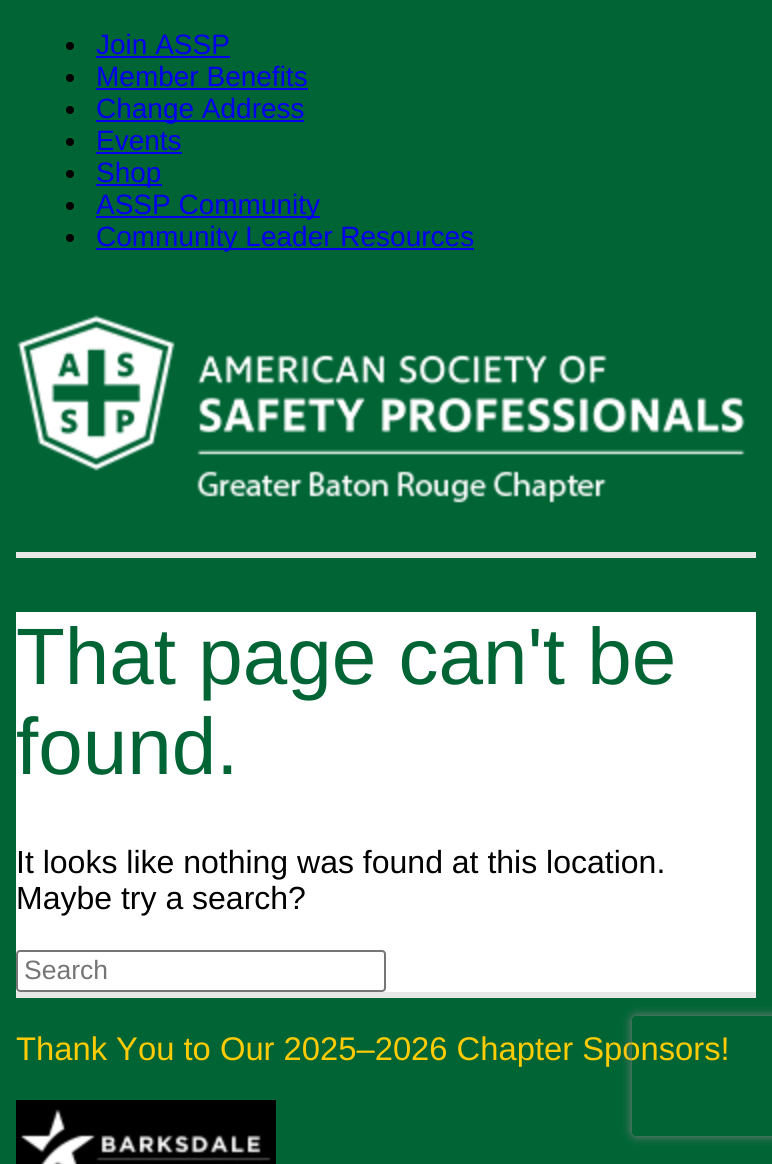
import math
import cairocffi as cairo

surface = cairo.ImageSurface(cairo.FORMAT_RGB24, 772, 1164)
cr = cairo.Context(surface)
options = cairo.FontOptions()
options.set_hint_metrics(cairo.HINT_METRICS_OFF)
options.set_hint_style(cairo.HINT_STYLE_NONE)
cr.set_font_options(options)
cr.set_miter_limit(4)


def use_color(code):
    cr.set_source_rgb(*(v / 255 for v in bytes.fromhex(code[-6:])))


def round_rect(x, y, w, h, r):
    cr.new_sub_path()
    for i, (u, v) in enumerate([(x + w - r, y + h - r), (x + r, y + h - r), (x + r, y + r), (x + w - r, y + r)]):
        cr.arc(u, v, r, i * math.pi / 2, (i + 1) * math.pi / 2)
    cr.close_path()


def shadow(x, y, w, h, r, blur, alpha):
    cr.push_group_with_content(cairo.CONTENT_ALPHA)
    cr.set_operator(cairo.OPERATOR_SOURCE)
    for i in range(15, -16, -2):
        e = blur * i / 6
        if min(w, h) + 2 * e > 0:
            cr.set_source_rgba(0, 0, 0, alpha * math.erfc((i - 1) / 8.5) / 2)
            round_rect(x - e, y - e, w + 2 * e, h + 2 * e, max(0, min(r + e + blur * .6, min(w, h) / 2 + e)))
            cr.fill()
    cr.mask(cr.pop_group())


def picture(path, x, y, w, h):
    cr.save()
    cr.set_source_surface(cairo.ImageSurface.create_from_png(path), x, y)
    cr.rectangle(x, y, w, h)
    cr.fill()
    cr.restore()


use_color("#006435")
cr.paint()
use_color("#000000")
cr.arc(70, 46, 4, 0, 2 * math.pi)
cr.fill()
cr.select_font_face("Liberation Sans")
cr.set_font_size(28)
use_color("#0000ee")
cr.move_to(96, 54)
cr.show_text("Join ASSP")
cr.rectangle(96, 56, 134, 2)
cr.fill()
use_color("#000000")
cr.arc(70, 78, 4, 0, 2 * math.pi)
cr.fill()
use_color("#0000ee")
cr.move_to(96, 86)
cr.show_text("Member Benefits")
cr.rectangle(96, 88, 212, 2)
cr.fill()
use_color("#000000")
cr.arc(70, 110, 4, 0, 2 * math.pi)
cr.fill()
use_color("#0000ee")
cr.rectangle(96, 120, 208, 2)
cr.fill()
cr.move_to(96, 118)
cr.show_text("Change Address")
use_color("#000000")
cr.new_path()
cr.arc(70, 142, 4, 0, 2 * math.pi)
cr.fill()
use_color("#0000ee")
cr.move_to(96, 150)
cr.show_text("Events")
cr.rectangle(96, 152, 86, 2)
cr.fill()
use_color("#000000")
cr.arc(70, 174, 4, 0, 2 * math.pi)
cr.fill()
use_color("#0000ee")
cr.rectangle(96, 184, 66, 2)
cr.fill()
cr.move_to(96, 182)
cr.show_text("Shop")
use_color("#000000")
cr.new_path()
cr.arc(70, 206, 4, 0, 2 * math.pi)
cr.fill()
use_color("#0000ee")
cr.rectangle(96, 216, 224, 2)
cr.fill()
cr.move_to(96, 214)
cr.show_text("ASSP Community")
use_color("#000000")
cr.new_path()
cr.arc(70, 238, 4, 0, 2 * math.pi)
cr.fill()
use_color("#0000ee")
cr.rectangle(96, 248, 378, 2)
cr.fill()
cr.move_to(96, 246)
cr.show_text("Community Leader Resources")
use_color("#e8e8e8")
cr.rectangle(16, 552, 740, 6)
cr.fill()
picture("img1.png", 17, 315, 728, 188)
use_color("#ffffff")
cr.rectangle(16, 612, 740, 380)
cr.fill()
cr.set_font_size(80)
use_color("#006435")
cr.move_to(16, 684)
cr.show_text("That page can't be")
cr.move_to(16, 774)
cr.show_text("found.")
cr.set_font_size(32)
use_color("#000000")
cr.move_to(16, 873)
cr.show_text("It looks like nothing was found at this location.")
cr.move_to(16, 909)
cr.show_text("Maybe try a search?")
round_rect(17, 951, 368, 40, 3)
use_color("#767676")
cr.stroke()
cr.set_font_size(26.5)
use_color("#757575")
cr.move_to(24, 979)
cr.show_text("Search")
use_color("#e8e8e8")
cr.rectangle(16, 992, 740, 6)
cr.fill()
cr.set_font_size(32.75)
use_color("#ffcb05")
cr.move_to(16, 1060)
cr.show_text("Thank You to Our 2025–2026 Chapter Sponsors!")
picture("img2.png", 16, 1100, 260, 64)
cr.save()
cr.set_fill_rule(cairo.FILL_RULE_EVEN_ODD)
cr.new_path()
cr.move_to(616, 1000)
cr.line_to(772, 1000)
cr.line_to(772, 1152)
cr.line_to(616, 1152)
cr.close_path()
cr.move_to(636, 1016)
cr.line_to(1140, 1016)
cr.curve_to(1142, 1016, 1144, 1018, 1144, 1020)
cr.line_to(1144, 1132)
cr.curve_to(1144, 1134, 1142, 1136, 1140, 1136)
cr.line_to(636, 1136)
cr.curve_to(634, 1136, 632, 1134, 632, 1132)
cr.line_to(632, 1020)
cr.curve_to(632, 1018, 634, 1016, 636, 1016)
cr.close_path()
cr.clip()
use_color("#808080")
shadow(632, 1016, 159, 120, 4, 5, 1)
cr.restore()
surface.write_to_png("result.png")
